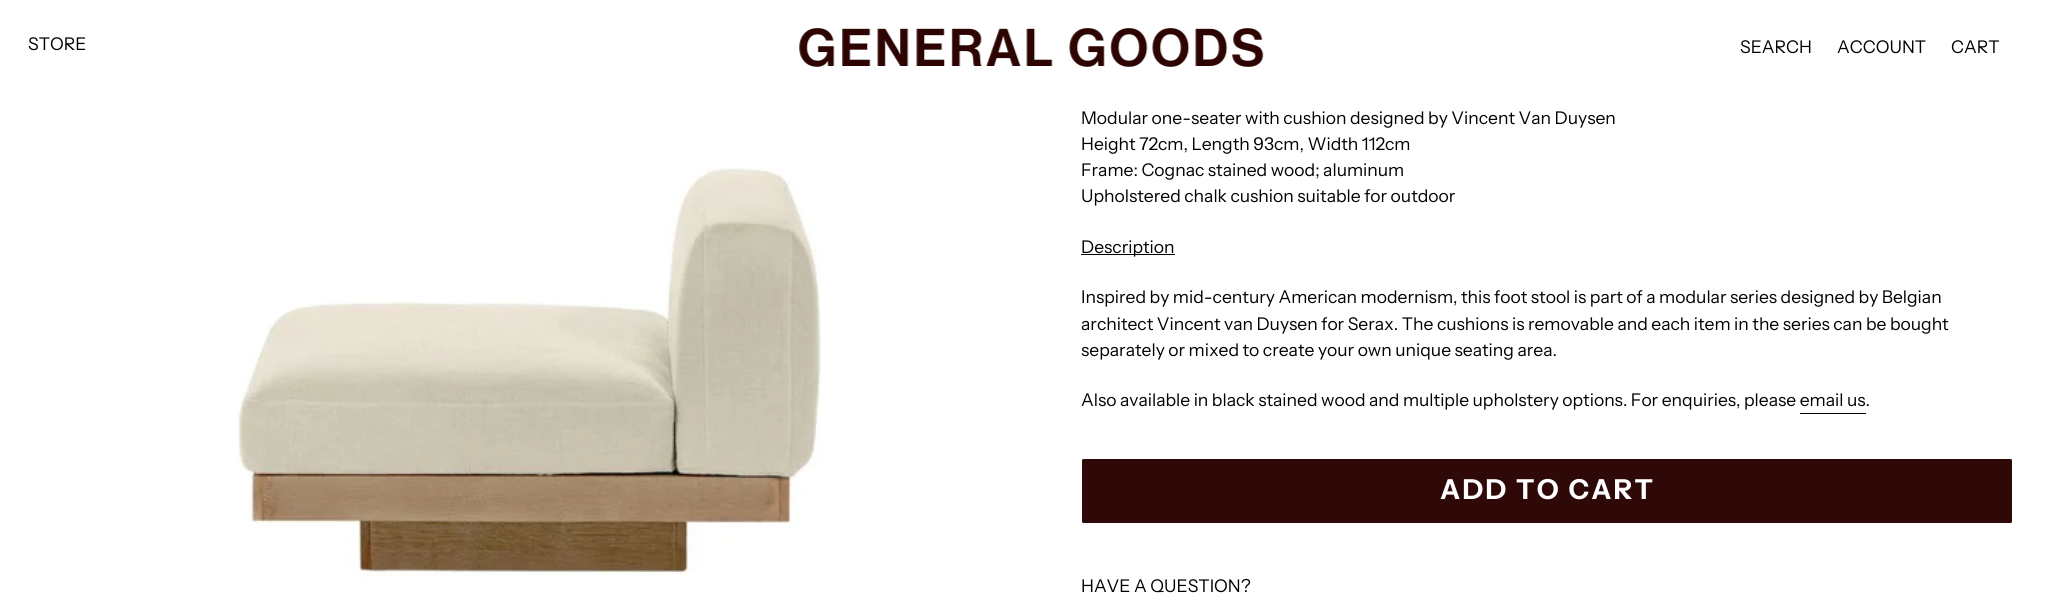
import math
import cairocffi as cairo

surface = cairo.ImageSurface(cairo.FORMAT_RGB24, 2062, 606)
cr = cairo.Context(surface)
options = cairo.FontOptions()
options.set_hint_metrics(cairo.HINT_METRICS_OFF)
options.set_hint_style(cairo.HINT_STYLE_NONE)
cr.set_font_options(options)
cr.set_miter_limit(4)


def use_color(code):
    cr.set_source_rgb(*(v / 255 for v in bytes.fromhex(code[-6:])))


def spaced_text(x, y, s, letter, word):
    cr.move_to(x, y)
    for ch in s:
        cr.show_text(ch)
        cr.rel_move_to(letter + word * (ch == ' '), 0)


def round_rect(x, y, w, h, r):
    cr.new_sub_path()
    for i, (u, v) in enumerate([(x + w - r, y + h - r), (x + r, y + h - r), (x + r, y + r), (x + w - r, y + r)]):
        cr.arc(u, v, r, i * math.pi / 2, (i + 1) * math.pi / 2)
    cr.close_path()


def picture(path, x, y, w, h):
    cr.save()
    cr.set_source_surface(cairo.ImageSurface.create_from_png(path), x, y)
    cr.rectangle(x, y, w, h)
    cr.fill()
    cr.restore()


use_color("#ffffff")
cr.paint()
cr.select_font_face("Instrument Sans")
cr.set_font_size(17.5)
use_color("#000000")
cr.move_to(28, 50)
cr.show_text("STORE")
picture("img1.png", 799, 28, 465, 39)
cr.move_to(1740, 53)
cr.show_text("SEARCH")
cr.move_to(1837, 53)
cr.show_text("ACCOUNT")
cr.move_to(1951, 53)
cr.show_text("CART")
picture("img2.png", 237, 168, 585, 410)
cr.move_to(1081, 124)
cr.show_text("Modular one-seater with cushion designed by Vincent Van Duysen")
cr.move_to(1081, 150)
cr.show_text("Height 72cm, Length 93cm, Width 112cm")
cr.move_to(1081, 176)
cr.show_text("Frame: Cognac stained wood; aluminum")
cr.move_to(1081, 202)
cr.show_text("Upholstered chalk cushion suitable for outdoor")
cr.rectangle(1081, 254, 94, 1)
cr.fill()
cr.move_to(1081, 253)
cr.show_text("Description")
cr.move_to(1081, 303)
cr.show_text("Inspired by mid-century American modernism, this foot stool is part of a modular series designed by Belgian")
cr.move_to(1081, 330)
cr.show_text("architect Vincent van Duysen for Serax. The cushions is removable and each item in the series can be bought")
cr.move_to(1081, 356)
cr.show_text("separately or mixed to create your own unique seating area.")
cr.move_to(1081, 406)
cr.show_text("Also available in black stained wood and multiple upholstery options. For enquiries, please email us.")
cr.rectangle(1800, 413, 66, 1)
cr.fill()
use_color("#2f0808")
round_rect(1081.5, 458.5, 931, 65, 2)
cr.fill_preserve()
use_color("#ffffff")
cr.set_line_width(1)
cr.stroke()
cr.select_font_face("Instrument Sans", cairo.FONT_SLANT_NORMAL, cairo.FONT_WEIGHT_BOLD)
cr.set_font_size(27.5)
spaced_text(1440, 499, "ADD TO CART", 2.25, 0)
cr.select_font_face("Instrument Sans")
cr.set_font_size(17.5)
use_color("#000000")
cr.move_to(1081, 592)
cr.show_text("HAVE A QUESTION?")
surface.write_to_png("result.png")
